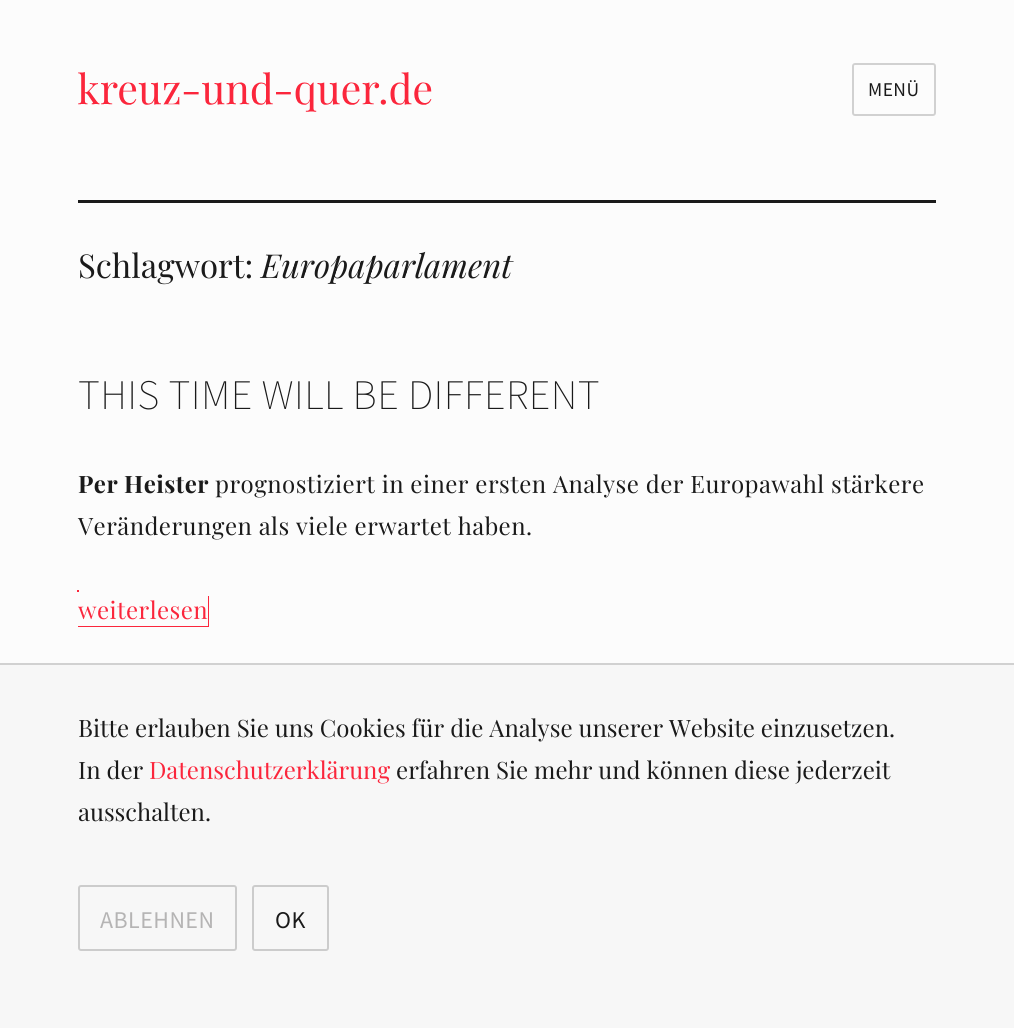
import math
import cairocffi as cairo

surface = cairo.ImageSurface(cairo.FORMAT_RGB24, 1014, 1028)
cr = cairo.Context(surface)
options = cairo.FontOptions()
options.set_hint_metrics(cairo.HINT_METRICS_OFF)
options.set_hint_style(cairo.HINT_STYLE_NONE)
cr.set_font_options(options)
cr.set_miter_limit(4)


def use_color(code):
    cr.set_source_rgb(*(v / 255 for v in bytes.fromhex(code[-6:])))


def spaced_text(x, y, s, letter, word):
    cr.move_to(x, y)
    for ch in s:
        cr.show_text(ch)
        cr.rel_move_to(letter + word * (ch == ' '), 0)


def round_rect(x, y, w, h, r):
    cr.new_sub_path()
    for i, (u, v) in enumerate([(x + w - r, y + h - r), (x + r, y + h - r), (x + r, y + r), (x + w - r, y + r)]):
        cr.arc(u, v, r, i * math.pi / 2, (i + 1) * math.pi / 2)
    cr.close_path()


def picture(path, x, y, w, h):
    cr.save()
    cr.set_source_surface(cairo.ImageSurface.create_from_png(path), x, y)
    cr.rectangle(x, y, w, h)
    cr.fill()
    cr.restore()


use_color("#fcfcfc")
cr.paint()
picture("img1.png", 78, 72, 354, 40)
round_rect(853, 64, 82, 51, 2)
use_color("#d1d1d1")
cr.stroke()
cr.select_font_face("Source Sans Pro")
cr.set_font_size(19.5)
use_color("#1a1a1a")
spaced_text(868, 96, "MENÜ", 0.45, 0)
cr.rectangle(78, 200, 858, 3)
cr.fill()
cr.select_font_face("Playfair Display")
cr.set_font_size(33)
cr.move_to(78, 278)
cr.show_text("Schlagwort:")
cr.select_font_face("Playfair Display", cairo.FONT_SLANT_ITALIC)
cr.move_to(261, 278)
cr.show_text("Europaparlament")
cr.select_font_face("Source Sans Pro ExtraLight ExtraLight")
cr.set_font_size(42)
spaced_text(78, 409, "THIS TIME WILL BE DIFFERENT", 0.45, 0)
cr.select_font_face("Playfair Display", cairo.FONT_SLANT_NORMAL, cairo.FONT_WEIGHT_BOLD)
cr.set_font_size(24)
spaced_text(78, 493, "Per Heister", 0.45, 0)
cr.select_font_face("Playfair Display")
spaced_text(215, 493, "prognostiziert in einer ersten Analyse der Europawahl stärkere", 0.45, 0)
spaced_text(78, 535, "Veränderungen als viele erwartet haben.", 0.45, 0)
use_color("#fb263c")
cr.new_path()
cr.move_to(78, 626)
cr.line_to(78, 627)
cr.line_to(209, 627)
cr.line_to(209, 596)
cr.line_to(208, 596)
cr.line_to(208, 626)
cr.close_path()
cr.fill()
spaced_text(78, 619, "weiterlesen", 0.45, 0)
cr.rectangle(77, 590, 2, 2)
cr.fill()
use_color("#f7f7f7")
cr.rectangle(0, 665, 1014, 363)
cr.fill()
use_color("#d1d1d1")
cr.rectangle(0, 663, 1014, 2)
cr.fill()
use_color("#1a1a1a")
cr.move_to(78, 737)
cr.show_text("Bitte erlauben Sie uns Cookies für die Analyse unserer Website einzusetzen.")
cr.move_to(78, 779)
cr.show_text("In der")
use_color("#fb263c")
cr.move_to(149, 779)
cr.show_text("Datenschutzerklärung")
use_color("#1a1a1a")
cr.move_to(396, 779)
cr.show_text("erfahren Sie mehr und können diese jederzeit")
cr.move_to(78, 821)
cr.show_text("ausschalten.")
round_rect(79, 886, 157, 64, 2)
use_color("#cccccc")
cr.stroke()
cr.select_font_face("Source Sans Pro")
use_color("#b5b4b4")
spaced_text(100, 928, "ABLEHNEN", 0.45, 0)
round_rect(253, 886, 75, 64, 2)
use_color("#cccccc")
cr.stroke()
use_color("#1a1a1a")
spaced_text(275, 928, "OK", 0.45, 0)
surface.write_to_png("result.png")
